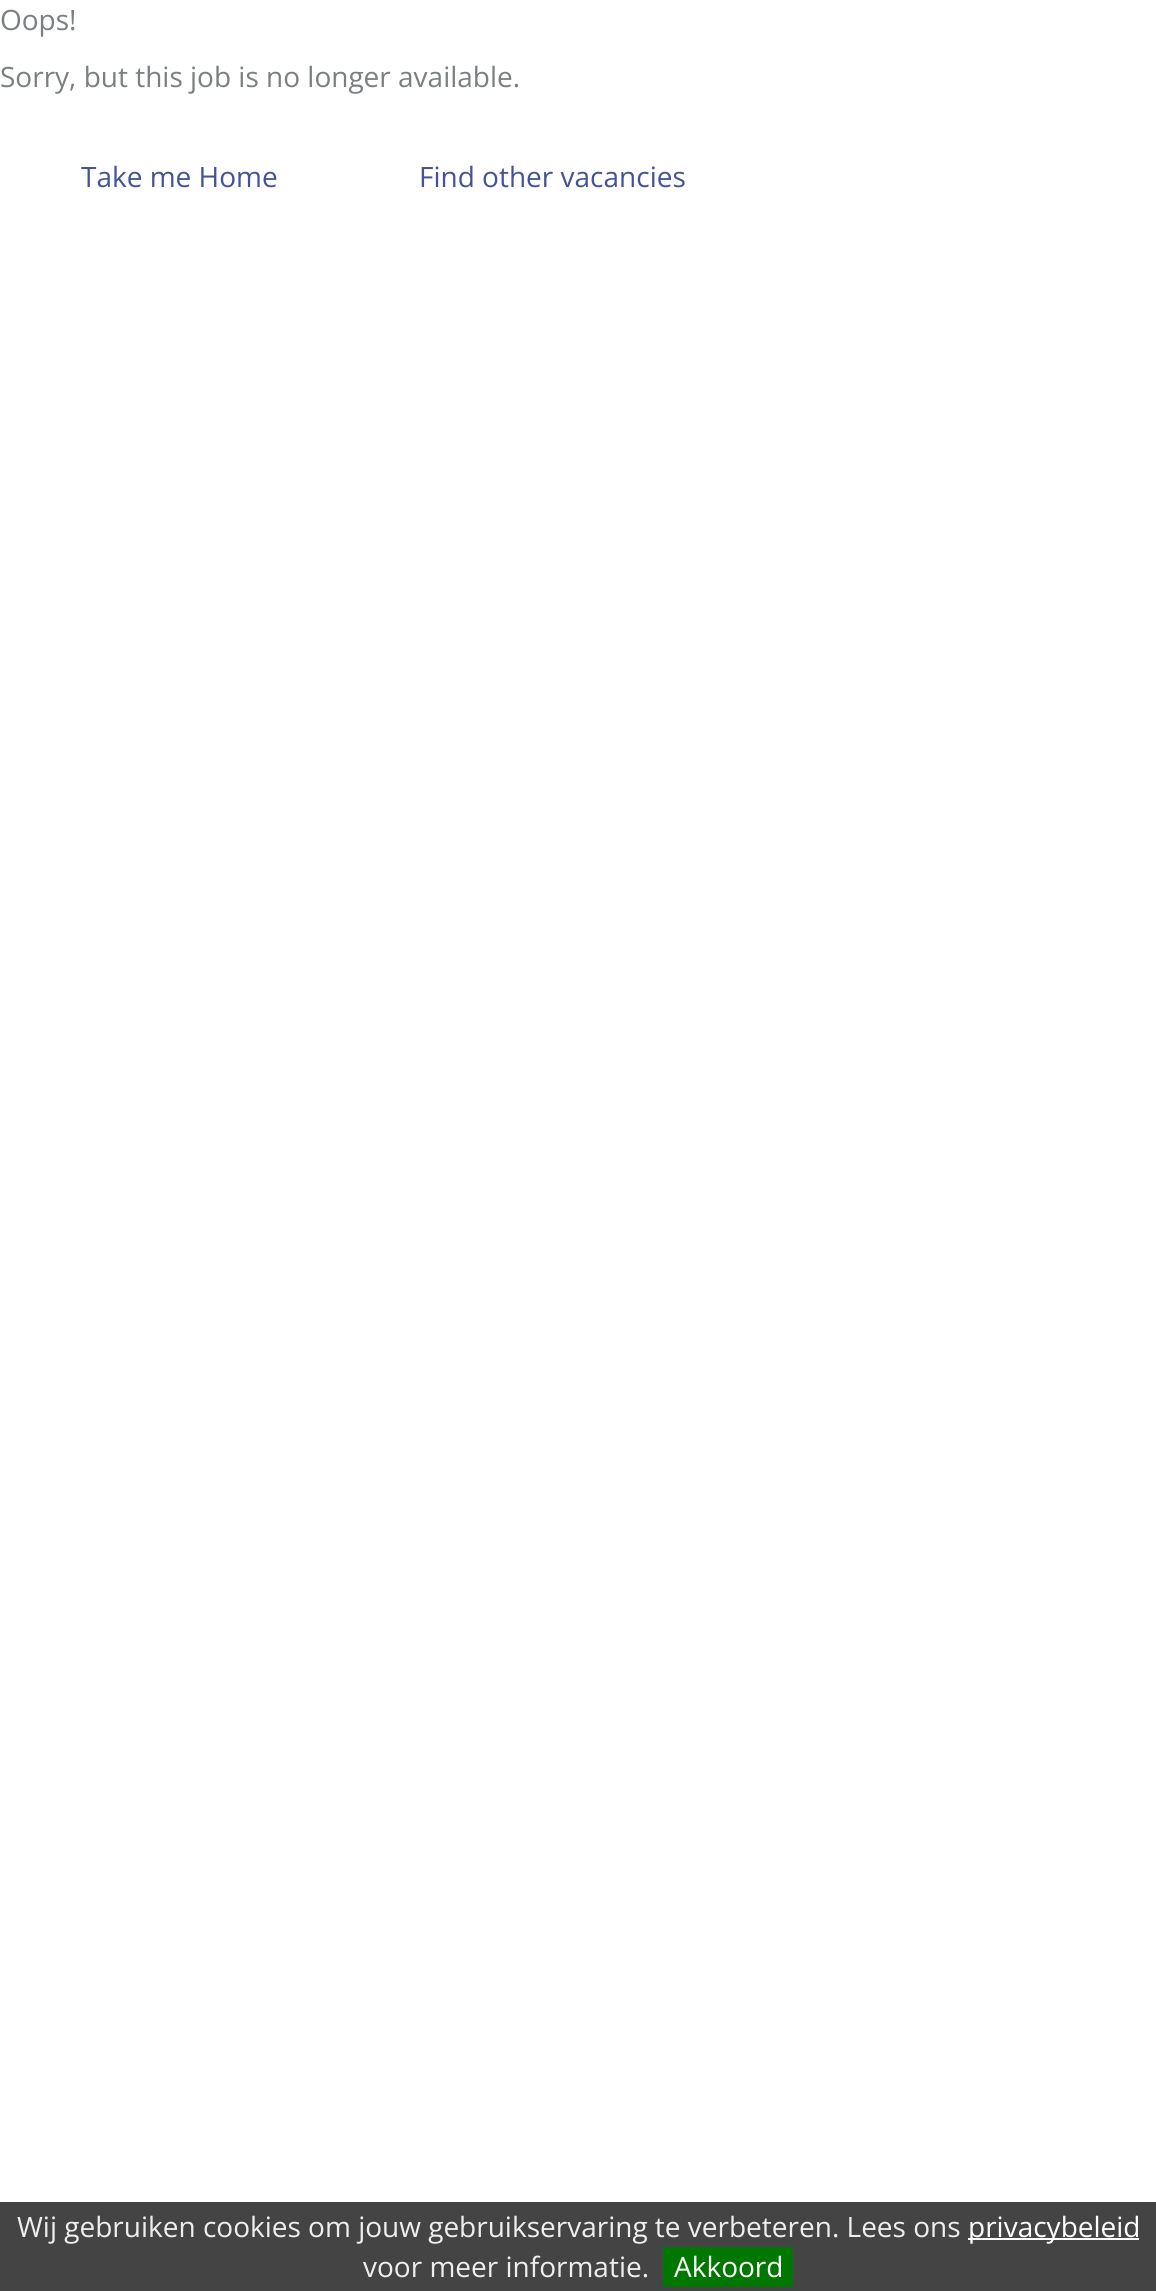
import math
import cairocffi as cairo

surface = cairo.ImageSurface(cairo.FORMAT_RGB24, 1156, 2291)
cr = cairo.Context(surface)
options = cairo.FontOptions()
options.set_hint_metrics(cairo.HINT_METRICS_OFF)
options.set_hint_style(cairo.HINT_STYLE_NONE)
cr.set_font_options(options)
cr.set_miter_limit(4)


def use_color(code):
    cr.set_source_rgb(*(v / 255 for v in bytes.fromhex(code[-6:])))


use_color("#ffffff")
cr.paint()
cr.select_font_face("Open Sans")
cr.set_font_size(28)
use_color("#7a7f81")
cr.move_to(0, 30)
cr.show_text("Oops!")
cr.move_to(0, 87)
cr.show_text("Sorry, but this job is no longer available.")
use_color("#445299")
cr.move_to(81, 187)
cr.show_text("Take me Home")
cr.move_to(419, 187)
cr.show_text("Find other vacancies")
use_color("#444444")
cr.rectangle(0, 2202, 1156, 89)
cr.fill()
use_color("#eeeeee")
cr.move_to(17, 2237)
cr.show_text("Wij gebruiken cookies om jouw gebruikservaring te verbeteren. Lees ons")
use_color("#ffffff")
cr.rectangle(968, 2238, 171, 2)
cr.fill()
cr.move_to(968, 2237)
cr.show_text("privacybeleid")
use_color("#eeeeee")
cr.move_to(363, 2277)
cr.show_text("voor meer informatie.")
use_color("#007700")
cr.rectangle(663, 2247, 130, 40)
cr.fill()
use_color("#ffffff")
cr.move_to(674, 2277)
cr.show_text("Akkoord")
surface.write_to_png("result.png")
